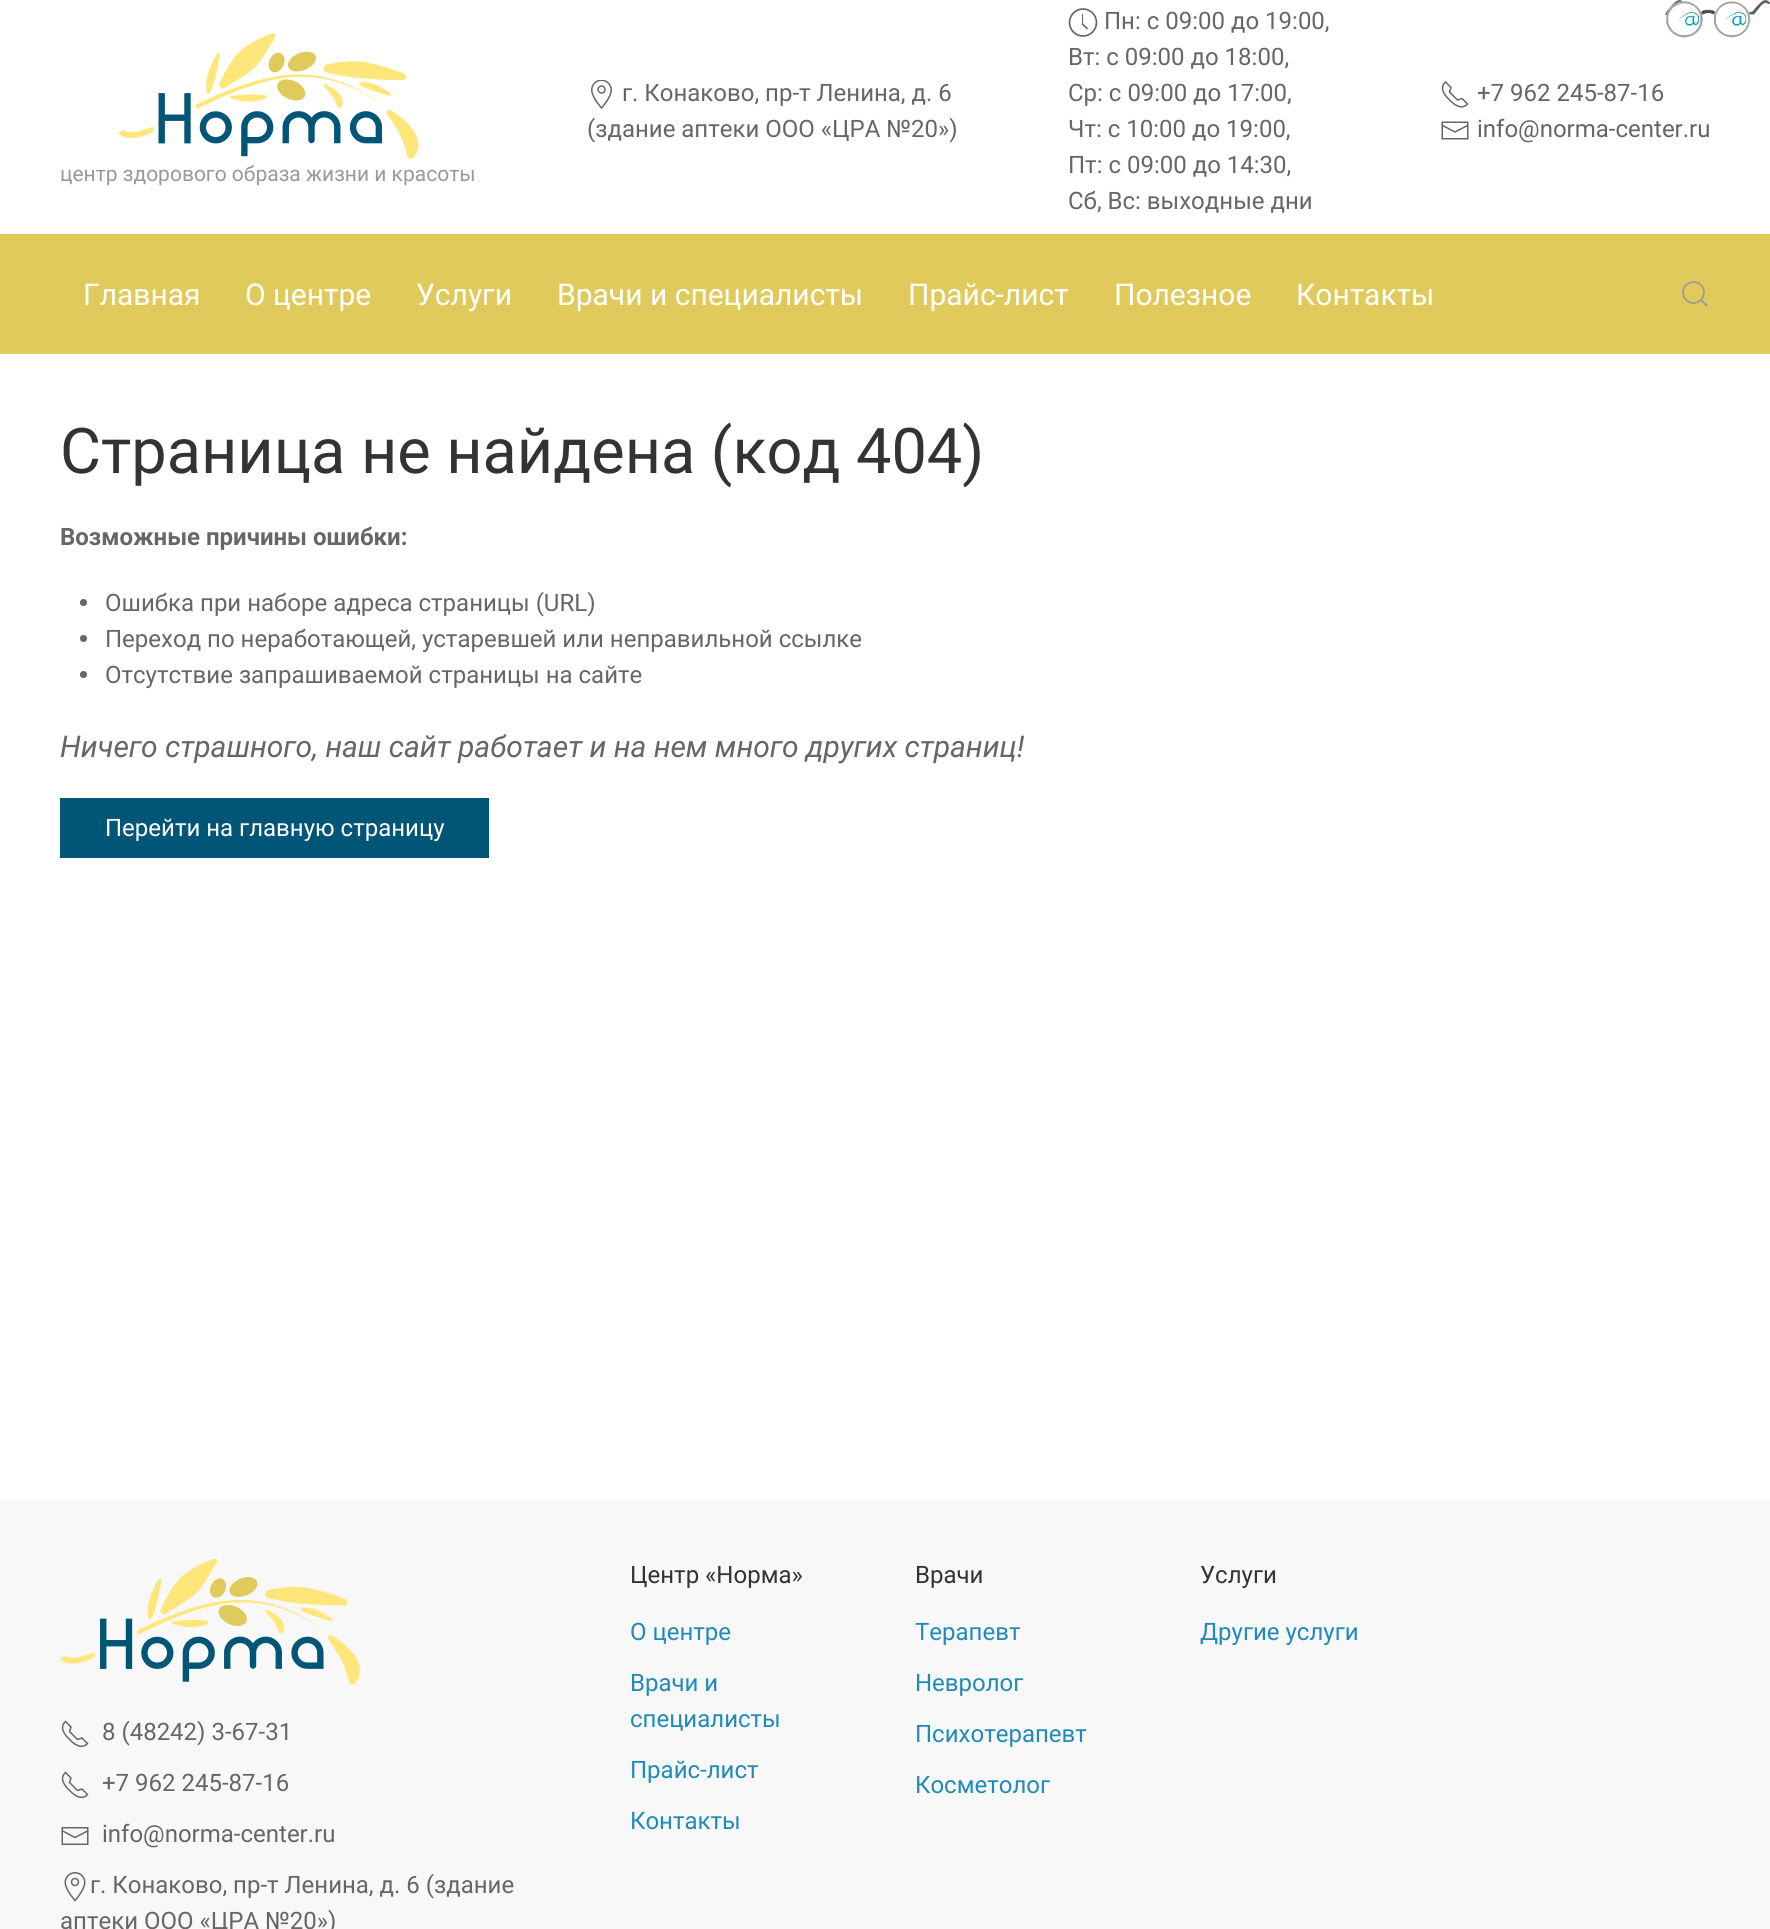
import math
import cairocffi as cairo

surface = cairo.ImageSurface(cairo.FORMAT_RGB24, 1770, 1929)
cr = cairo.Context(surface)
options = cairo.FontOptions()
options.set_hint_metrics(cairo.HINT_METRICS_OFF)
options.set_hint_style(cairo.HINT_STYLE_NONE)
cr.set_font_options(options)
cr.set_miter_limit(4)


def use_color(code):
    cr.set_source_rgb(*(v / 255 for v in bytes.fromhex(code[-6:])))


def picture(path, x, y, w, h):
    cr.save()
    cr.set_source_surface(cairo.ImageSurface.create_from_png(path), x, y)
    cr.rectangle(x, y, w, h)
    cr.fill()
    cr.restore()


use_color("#ffffff")
cr.paint()
picture("img1.png", 591, 80, 21, 29)
cr.select_font_face("Roboto")
cr.set_font_size(24)
use_color("#666666")
cr.move_to(622, 101)
cr.show_text("г. Конаково, пр-т Ленина, д. 6")
cr.move_to(587, 137)
cr.show_text("(здание аптеки ООО «ЦРА №20»)")
cr.new_path()
cr.arc(1083, 22.5, 13.5, 0, 2 * math.pi)
cr.set_line_width(1.7)
cr.stroke()
cr.rectangle(1082, 14, 1, 10)
cr.fill()
cr.new_path()
cr.move_to(1087.5, 29)
cr.line_to(1082, 23.5)
cr.stroke()
cr.move_to(1104, 29)
cr.show_text("Пн: с 09:00 до 19:00,")
cr.move_to(1068, 65)
cr.show_text("Вт: с 09:00 до 18:00,")
cr.move_to(1068, 101)
cr.show_text("Ср: с 09:00 до 17:00,")
cr.move_to(1068, 137)
cr.show_text("Чт: с 10:00 до 19:00,")
cr.move_to(1068, 173)
cr.show_text("Пт: с 09:00 до 14:30,")
cr.move_to(1068, 209)
cr.show_text("Сб, Вс: выходные дни")
cr.new_path()
cr.move_to(1449.5, 100)
cr.curve_to(1454, 104.5, 1461.5, 110.5, 1467.5, 104)
cr.line_to(1462, 98.5)
cr.line_to(1457.5, 100)
cr.line_to(1449.5, 92)
cr.line_to(1451, 87.5)
cr.line_to(1445.5, 82)
cr.curve_to(1439, 88, 1444.5, 95, 1449.5, 100)
cr.set_line_width(1.5)
cr.stroke()
cr.move_to(1477, 101)
cr.show_text("+7 962 245-87-16")
picture("img2.png", 1441, 121, 28, 19)
cr.move_to(1477, 137)
cr.show_text("info@norma-center.ru")
picture("img3.png", 119, 33, 300, 126)
cr.set_font_size(21)
use_color("#999999")
cr.move_to(60, 181)
cr.show_text("центр здорового образа жизни и красоты")
picture("img4.png", 1665, 0, 105, 38)
use_color("#dfca5b")
cr.rectangle(0, 234, 1770, 120)
cr.fill()
cr.set_font_size(30)
use_color("#ffffff")
cr.move_to(83, 305)
cr.show_text("Главная")
cr.move_to(245, 305)
cr.show_text("О центре")
cr.move_to(416, 305)
cr.show_text("Услуги")
cr.move_to(557, 305)
cr.show_text("Врачи и специалисты")
cr.move_to(908, 305)
cr.show_text("Прайс-лист")
cr.move_to(1114, 305)
cr.show_text("Полезное")
cr.move_to(1296, 305)
cr.show_text("Контакты")
cr.new_path()
cr.arc(1693.5, 292.5, 10.5, 0, 2 * math.pi)
use_color("#999999")
cr.set_line_width(1.7)
cr.stroke()
cr.new_path()
cr.move_to(1701, 300)
cr.line_to(1707, 306)
cr.close_path()
cr.stroke()
cr.set_font_size(63)
use_color("#333333")
cr.move_to(60, 473)
cr.show_text("Страница не найдена (код 404)")
cr.select_font_face("Roboto", cairo.FONT_SLANT_NORMAL, cairo.FONT_WEIGHT_BOLD)
cr.set_font_size(24)
use_color("#666666")
cr.move_to(60, 545)
cr.show_text("Возможные причины ошибки:")
cr.new_path()
cr.arc(83.5, 602.5, 3.5, 0, 2 * math.pi)
cr.fill()
cr.select_font_face("Roboto")
cr.move_to(105, 611)
cr.show_text("Ошибка при наборе адреса страницы (URL)")
cr.new_path()
cr.arc(83.5, 638.5, 3.5, 0, 2 * math.pi)
cr.fill()
cr.move_to(105, 647)
cr.show_text("Переход по неработающей, устаревшей или неправильной ссылке")
cr.new_path()
cr.arc(83.5, 674.5, 3.5, 0, 2 * math.pi)
cr.fill()
cr.move_to(105, 683)
cr.show_text("Отсутствие запрашиваемой страницы на сайте")
cr.select_font_face("Roboto", cairo.FONT_SLANT_ITALIC)
cr.set_font_size(30)
cr.move_to(60, 757)
cr.show_text("Ничего страшного, наш сайт работает и на нем много других страниц!")
use_color("#015678")
cr.rectangle(60, 798, 429, 60)
cr.fill()
cr.select_font_face("Roboto")
cr.set_font_size(24)
use_color("#ffffff")
cr.move_to(105, 836)
cr.show_text("Перейти на главную страницу")
use_color("#f8f8f8")
cr.rectangle(0, 1499, 1770, 430)
cr.fill()
use_color("#333333")
cr.move_to(630, 1583)
cr.show_text("Центр «Норма»")
use_color("#208ab8")
cr.move_to(630, 1640)
cr.show_text("О центре")
cr.move_to(630, 1691)
cr.show_text("Врачи и")
cr.move_to(630, 1727)
cr.show_text("специалисты")
cr.move_to(630, 1778)
cr.show_text("Прайс-лист")
cr.move_to(630, 1829)
cr.show_text("Контакты")
use_color("#333333")
cr.move_to(915, 1583)
cr.show_text("Врачи")
use_color("#208ab8")
cr.move_to(915, 1640)
cr.show_text("Терапевт")
cr.move_to(915, 1691)
cr.show_text("Невролог")
cr.move_to(915, 1742)
cr.show_text("Психотерапевт")
cr.move_to(915, 1793)
cr.show_text("Косметолог")
use_color("#333333")
cr.move_to(1200, 1583)
cr.show_text("Услуги")
use_color("#208ab8")
cr.move_to(1200, 1640)
cr.show_text("Другие услуги")
picture("img5.png", 60, 1559, 300, 126)
cr.new_path()
cr.move_to(69.5, 1739.5)
cr.curve_to(74, 1744, 81.5, 1750, 87.5, 1743.5)
cr.line_to(82, 1738)
cr.line_to(77.5, 1739.5)
cr.line_to(69.5, 1731.5)
cr.line_to(71, 1727)
cr.line_to(65.5, 1721.5)
cr.curve_to(59, 1727.5, 64.5, 1734.5, 69.5, 1739.5)
use_color("#666666")
cr.set_line_width(1.5)
cr.stroke()
cr.move_to(102, 1740)
cr.show_text("8 (48242) 3-67-31")
cr.new_path()
cr.move_to(69.5, 1790.5)
cr.curve_to(74, 1795, 81.5, 1801, 87.5, 1794.5)
cr.line_to(82, 1789)
cr.line_to(77.5, 1790.5)
cr.line_to(69.5, 1782.5)
cr.line_to(71, 1778)
cr.line_to(65.5, 1772.5)
cr.curve_to(59, 1778.5, 64.5, 1785.5, 69.5, 1790.5)
cr.stroke()
cr.move_to(102, 1791)
cr.show_text("+7 962 245-87-16")
picture("img6.png", 61, 1827, 28, 18)
cr.move_to(102, 1842)
cr.show_text("info@norma-center.ru")
picture("img7.png", 64, 1872, 22, 30)
cr.move_to(90, 1893)
cr.show_text("г. Конаково, пр-т Ленина, д. 6 (здание")
cr.move_to(60, 1929)
cr.show_text("аптеки ООО «ЦРА №20»)")
surface.write_to_png("result.png")
